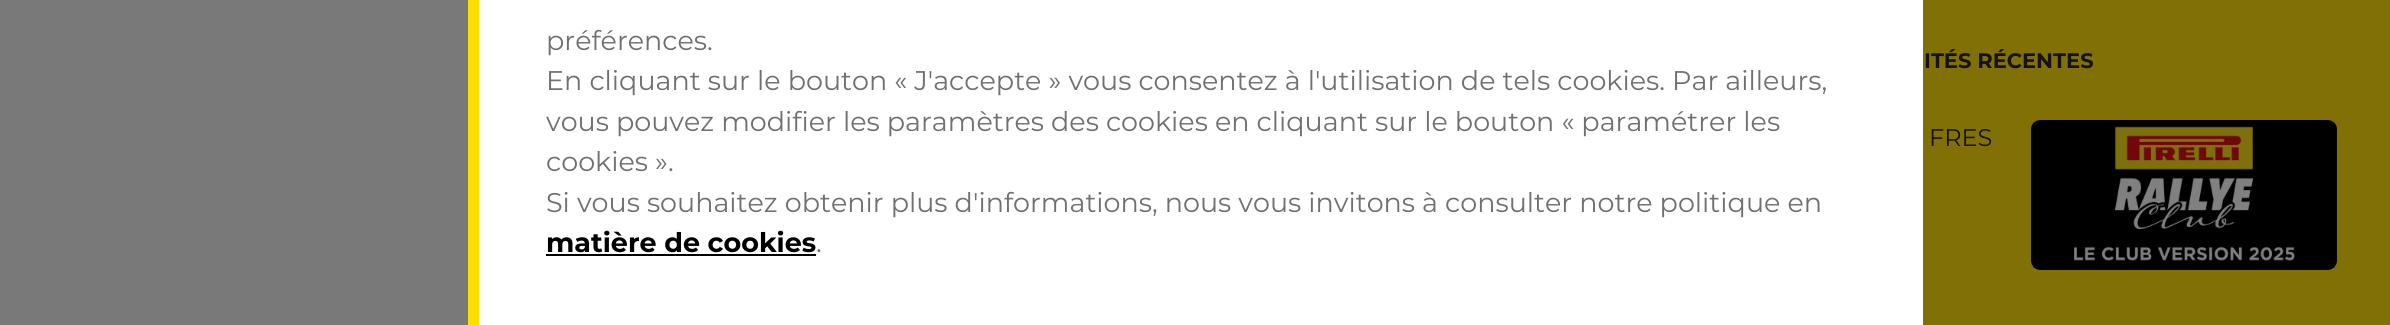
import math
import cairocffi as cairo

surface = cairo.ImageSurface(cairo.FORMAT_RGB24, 2390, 325)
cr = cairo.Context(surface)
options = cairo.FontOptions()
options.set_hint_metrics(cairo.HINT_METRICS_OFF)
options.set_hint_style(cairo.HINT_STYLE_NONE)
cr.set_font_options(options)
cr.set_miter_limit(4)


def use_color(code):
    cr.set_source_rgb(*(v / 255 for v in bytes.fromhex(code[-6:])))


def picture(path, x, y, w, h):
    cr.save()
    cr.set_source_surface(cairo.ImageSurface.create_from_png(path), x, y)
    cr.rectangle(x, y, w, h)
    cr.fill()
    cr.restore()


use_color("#797979")
cr.paint()
use_color("#ffffff")
cr.rectangle(479, 0, 1444, 325)
cr.fill()
use_color("#ffdd00")
cr.rectangle(468, 0, 11, 325)
cr.fill()
cr.select_font_face("Montserrat")
cr.set_font_size(27)
use_color("#707070")
cr.move_to(546, 50)
cr.show_text("préférences.")
cr.move_to(546, 90)
cr.show_text("En cliquant sur le bouton « J'accepte » vous consentez à l'utilisation de tels cookies. Par ailleurs,")
cr.move_to(546, 131)
cr.show_text("vous pouvez modifier les paramètres des cookies en cliquant sur le bouton « paramétrer les")
cr.move_to(546, 171)
cr.show_text("cookies ».")
cr.move_to(546, 212)
cr.show_text("Si vous souhaitez obtenir plus d'informations, nous vous invitons à consulter notre politique en")
cr.select_font_face("Montserrat", cairo.FONT_SLANT_NORMAL, cairo.FONT_WEIGHT_BOLD)
use_color("#000000")
cr.move_to(546, 252)
cr.show_text("matière de cookies")
cr.rectangle(546, 254, 270, 2)
cr.fill()
cr.select_font_face("Montserrat")
use_color("#707070")
cr.move_to(816, 252)
cr.show_text(".")
use_color("#807006")
cr.rectangle(1923, 0, 467, 325)
cr.fill()
cr.select_font_face("Montserrat", cairo.FONT_SLANT_NORMAL, cairo.FONT_WEIGHT_BOLD)
cr.set_font_size(21)
use_color("#131315")
cr.move_to(1924, 68)
cr.show_text("ITÉS RÉCENTES")
cr.select_font_face("Montserrat")
cr.set_font_size(24)
cr.move_to(1929, 146)
cr.show_text("FRES")
picture("img1.png", 2031, 120, 306, 150)
surface.write_to_png("result.png")
